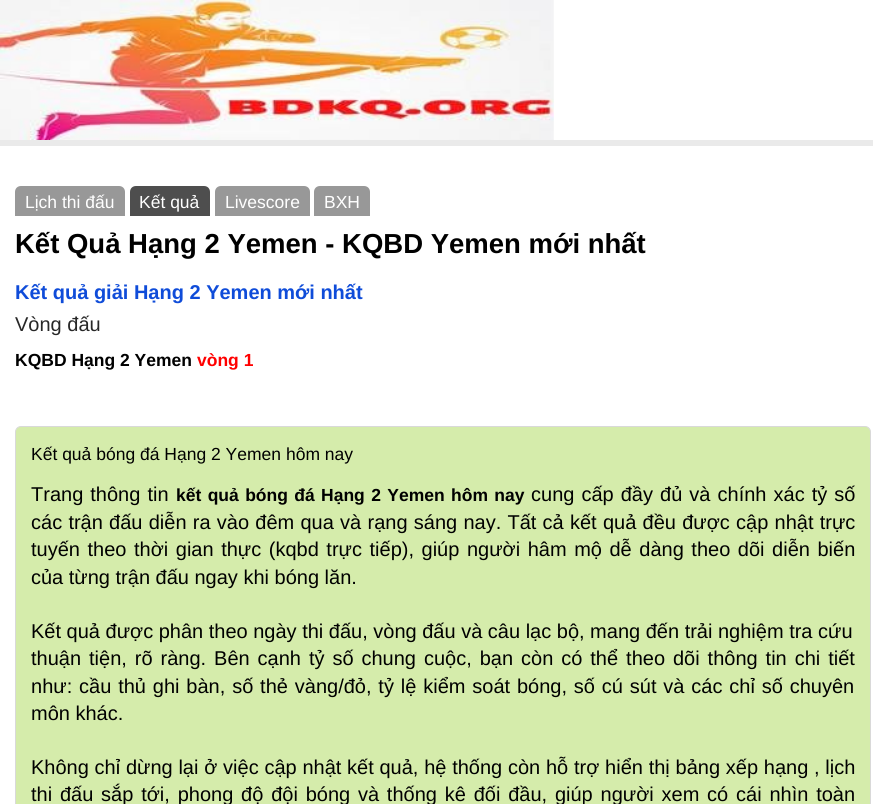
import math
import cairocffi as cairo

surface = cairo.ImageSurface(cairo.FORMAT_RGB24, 873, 804)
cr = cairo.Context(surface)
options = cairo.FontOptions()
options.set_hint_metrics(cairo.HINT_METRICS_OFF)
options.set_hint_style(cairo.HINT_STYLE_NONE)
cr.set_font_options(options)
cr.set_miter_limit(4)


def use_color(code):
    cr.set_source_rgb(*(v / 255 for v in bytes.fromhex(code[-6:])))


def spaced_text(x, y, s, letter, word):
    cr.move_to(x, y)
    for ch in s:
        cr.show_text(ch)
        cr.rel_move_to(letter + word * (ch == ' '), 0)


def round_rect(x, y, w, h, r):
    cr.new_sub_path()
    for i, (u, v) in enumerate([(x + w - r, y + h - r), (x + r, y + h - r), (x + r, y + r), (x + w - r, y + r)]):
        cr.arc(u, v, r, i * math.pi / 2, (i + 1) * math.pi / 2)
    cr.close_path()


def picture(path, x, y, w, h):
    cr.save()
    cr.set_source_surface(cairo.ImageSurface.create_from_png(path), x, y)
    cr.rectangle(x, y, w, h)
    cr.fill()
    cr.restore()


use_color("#eaeaea")
cr.paint()
use_color("#ffffff")
cr.rectangle(553, 0, 320, 140)
cr.fill()
picture("img1.png", 0, 0, 554, 140)
cr.rectangle(0, 146, 873, 658)
cr.fill()
use_color("#989898")
cr.new_path()
cr.move_to(21, 186)
cr.line_to(119, 186)
cr.curve_to(122.5, 186, 125, 188.5, 125, 192)
cr.line_to(125, 216)
cr.line_to(15, 216)
cr.line_to(15, 192)
cr.curve_to(15, 188.5, 17.5, 186, 21, 186)
cr.close_path()
cr.fill()
cr.select_font_face("Liberation Sans")
cr.set_font_size(17.5)
use_color("#ffffff")
cr.move_to(25, 208)
cr.show_text("Lịch thi đấu")
use_color("#4e4e4e")
cr.new_path()
cr.move_to(136, 186)
cr.line_to(204, 186)
cr.curve_to(207.5, 186, 210, 188.5, 210, 192)
cr.line_to(210, 216)
cr.line_to(130, 216)
cr.line_to(130, 192)
cr.curve_to(130, 188.5, 132.5, 186, 136, 186)
cr.close_path()
cr.fill()
use_color("#ffffff")
cr.move_to(139, 208)
cr.show_text("Kết quả")
use_color("#989898")
cr.new_path()
cr.move_to(221, 186)
cr.line_to(304, 186)
cr.curve_to(307.5, 186, 310, 188.5, 310, 192)
cr.line_to(310, 216)
cr.line_to(215, 216)
cr.line_to(215, 192)
cr.curve_to(215, 188.5, 217.5, 186, 221, 186)
cr.close_path()
cr.fill()
use_color("#ffffff")
cr.move_to(225, 208)
cr.show_text("Livescore")
use_color("#989898")
cr.new_path()
cr.move_to(320, 186)
cr.line_to(364, 186)
cr.curve_to(367.5, 186, 370, 188.5, 370, 192)
cr.line_to(370, 216)
cr.line_to(314, 216)
cr.line_to(314, 192)
cr.curve_to(314, 188.5, 316.5, 186, 320, 186)
cr.close_path()
cr.fill()
use_color("#ffffff")
cr.move_to(324, 208)
cr.show_text("BXH")
cr.select_font_face("Liberation Sans", cairo.FONT_SLANT_NORMAL, cairo.FONT_WEIGHT_BOLD)
cr.set_font_size(27.5)
use_color("#000000")
cr.move_to(15, 253)
cr.show_text("Kết Quả Hạng 2 Yemen - KQBD Yemen mới nhất")
cr.set_font_size(20)
use_color("#0f4cd9")
cr.move_to(15, 299)
cr.show_text("Kết quả giải Hạng 2 Yemen mới nhất")
cr.select_font_face("Liberation Sans")
use_color("#272727")
cr.move_to(15, 331)
cr.show_text("Vòng đấu")
cr.select_font_face("Liberation Sans", cairo.FONT_SLANT_NORMAL, cairo.FONT_WEIGHT_BOLD)
cr.set_font_size(17.5)
use_color("#000000")
cr.move_to(15, 366)
cr.show_text("KQBD Hạng 2 Yemen")
use_color("#ff0000")
cr.move_to(197, 366)
cr.show_text("vòng 1")
use_color("#d5ecab")
round_rect(15.5, 426.5, 855, 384, 5.5)
cr.fill_preserve()
use_color("#d9d9d9")
cr.set_line_width(1)
cr.stroke()
cr.select_font_face("Liberation Sans")
use_color("#000000")
cr.move_to(31, 460)
cr.show_text("Kết quả bóng đá Hạng 2 Yemen hôm nay")
cr.set_font_size(20)
spaced_text(31, 501, "Trang thông tin", 0, 1.5)
cr.select_font_face("Liberation Sans", cairo.FONT_SLANT_NORMAL, cairo.FONT_WEIGHT_BOLD)
cr.set_font_size(17.5)
spaced_text(176, 501, "kết quả bóng đá Hạng 2 Yemen hôm nay", 0, 1.5)
cr.select_font_face("Liberation Sans")
cr.set_font_size(20)
spaced_text(531, 501, "cung cấp đầy đủ và chính xác tỷ số", 0, 1.5)
spaced_text(31, 529, "các trận đấu diễn ra vào đêm qua và rạng sáng nay. Tất cả kết quả đều được cập nhật trực", 0, 0.7)
spaced_text(31, 556, "tuyến theo thời gian thực (kqbd trực tiếp), giúp người hâm mộ dễ dàng theo dõi diễn biến", 0, 2)
cr.move_to(31, 584)
cr.show_text("của từng trận đấu ngay khi bóng lăn.")
cr.move_to(31, 638)
cr.show_text("Kết quả được phân theo ngày thi đấu, vòng đấu và câu lạc bộ, mang đến trải nghiệm tra cứu")
spaced_text(31, 665, "thuận tiện, rõ ràng. Bên cạnh tỷ số chung cuộc, bạn còn có thể theo dõi thông tin chi tiết", 0, 2.4)
spaced_text(31, 693, "như: cầu thủ ghi bàn, số thẻ vàng/đỏ, tỷ lệ kiểm soát bóng, số cú sút và các chỉ số chuyên", 0, 1.3)
cr.move_to(31, 720)
cr.show_text("môn khác.")
spaced_text(31, 774, "Không chỉ dừng lại ở việc cập nhật kết quả, hệ thống còn hỗ trợ hiển thị bảng xếp hạng , lịch", 0, 0.2)
spaced_text(31, 801, "thi đấu sắp tới, phong độ đội bóng và thống kê đối đầu, giúp người xem có cái nhìn toàn", 0, 2.25)
surface.write_to_png("result.png")
